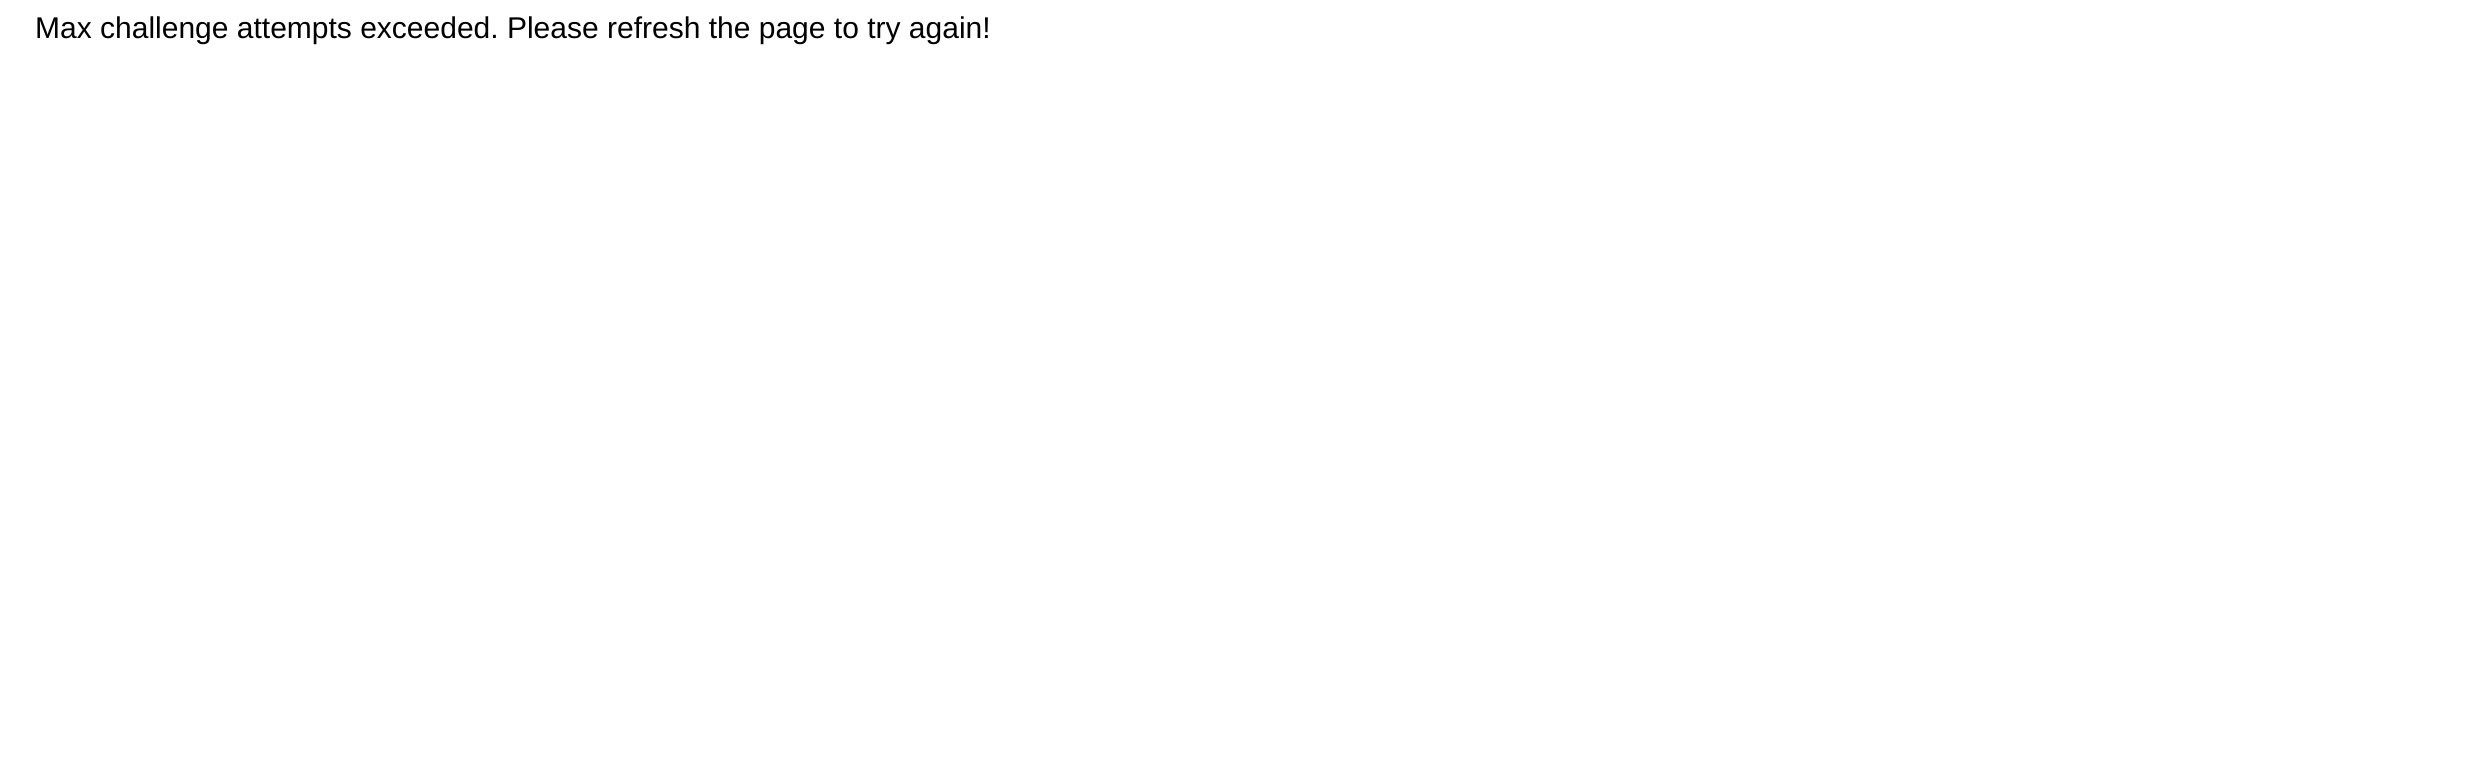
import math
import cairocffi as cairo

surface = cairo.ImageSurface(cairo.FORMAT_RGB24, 2466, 757)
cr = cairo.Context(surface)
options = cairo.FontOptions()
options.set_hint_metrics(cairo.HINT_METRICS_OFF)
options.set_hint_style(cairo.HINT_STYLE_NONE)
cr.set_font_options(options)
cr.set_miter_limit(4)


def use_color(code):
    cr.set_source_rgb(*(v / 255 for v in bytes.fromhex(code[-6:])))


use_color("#ffffff")
cr.paint()
cr.select_font_face("Liberation Sans")
cr.set_font_size(30)
use_color("#000000")
cr.move_to(35, 38)
cr.show_text("Max challenge attempts exceeded. Please refresh the page to try again!")
surface.write_to_png("result.png")
